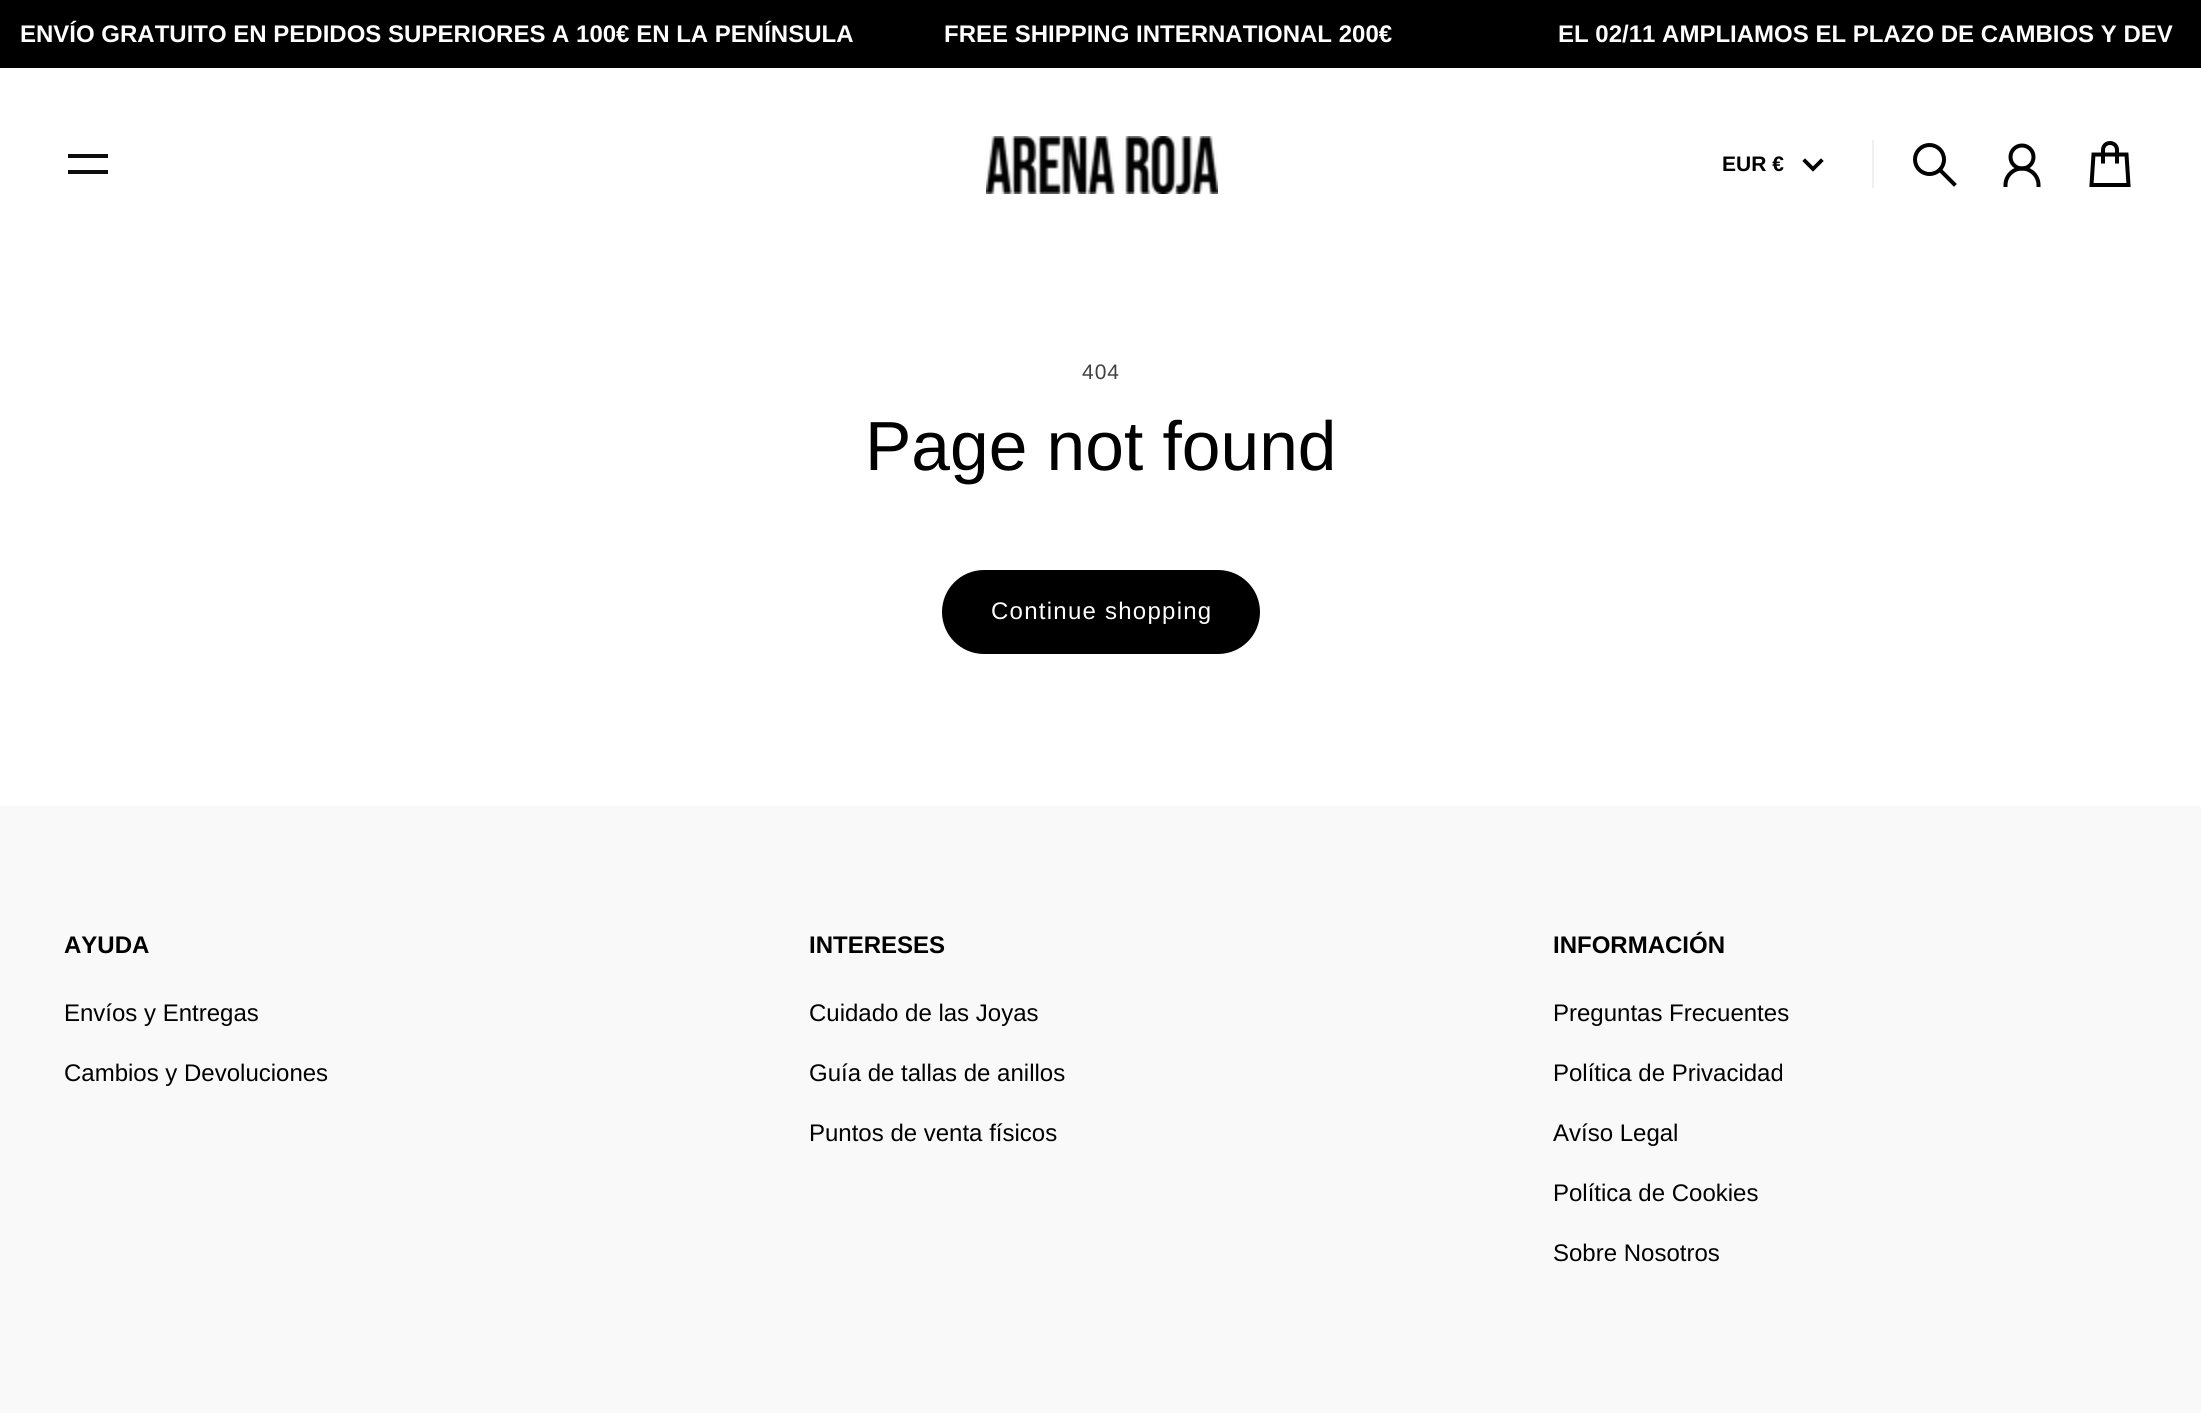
import math
import cairocffi as cairo

surface = cairo.ImageSurface(cairo.FORMAT_RGB24, 2201, 1413)
cr = cairo.Context(surface)
options = cairo.FontOptions()
options.set_hint_metrics(cairo.HINT_METRICS_OFF)
options.set_hint_style(cairo.HINT_STYLE_NONE)
cr.set_font_options(options)
cr.set_miter_limit(4)


def use_color(code):
    cr.set_source_rgb(*(v / 255 for v in bytes.fromhex(code[-6:])))


def spaced_text(x, y, s, letter, word):
    cr.move_to(x, y)
    for ch in s:
        cr.show_text(ch)
        cr.rel_move_to(letter + word * (ch == ' '), 0)


def round_rect(x, y, w, h, r):
    cr.new_sub_path()
    for i, (u, v) in enumerate([(x + w - r, y + h - r), (x + r, y + h - r), (x + r, y + r), (x + w - r, y + r)]):
        cr.arc(u, v, r, i * math.pi / 2, (i + 1) * math.pi / 2)
    cr.close_path()


def picture(path, x, y, w, h):
    cr.save()
    cr.set_source_surface(cairo.ImageSurface.create_from_png(path), x, y)
    cr.rectangle(x, y, w, h)
    cr.fill()
    cr.restore()


use_color("#ffffff")
cr.paint()
use_color("#000000")
cr.rectangle(0, 0, 2201, 68)
cr.fill()
cr.select_font_face("Liberation Sans", cairo.FONT_SLANT_NORMAL, cairo.FONT_WEIGHT_BOLD)
cr.set_font_size(24)
use_color("#ffffff")
cr.move_to(20, 42)
cr.show_text("ENVÍO GRATUITO EN PEDIDOS SUPERIORES A 100€ EN LA PENÍNSULA")
cr.move_to(944, 42)
cr.show_text("FREE SHIPPING INTERNATIONAL 200€")
cr.move_to(1558, 42)
cr.show_text("EL 02/11 AMPLIAMOS EL PLAZO DE CAMBIOS Y DEV")
use_color("#0d0d0d")
cr.rectangle(68, 170, 40, 4)
cr.fill()
cr.rectangle(68, 154, 40, 4)
cr.fill()
picture("img1.png", 986, 136, 232, 58)
cr.set_font_size(21)
use_color("#000000")
cr.move_to(1722, 171)
cr.show_text("EUR €")
cr.new_path()
cr.move_to(1805, 161)
cr.line_to(1813, 169)
cr.line_to(1821, 161)
cr.set_line_width(3.8)
cr.set_line_cap(cairo.LINE_CAP_SQUARE)
cr.stroke()
use_color("#f0f0f0")
cr.rectangle(1872, 140, 2, 48)
cr.fill()
cr.new_path()
cr.move_to(1954, 184)
cr.line_to(1940, 170)
use_color("#000000")
cr.set_line_width(4)
cr.stroke()
cr.arc(1929.5, 159.5, 14.5, 0, 2 * math.pi)
cr.set_line_cap(cairo.LINE_CAP_BUTT)
cr.stroke()
cr.arc(2022, 157, 11.5, 0, 2 * math.pi)
cr.stroke()
cr.new_path()
cr.move_to(2038.5, 185)
cr.curve_to(2038.5, 176, 2031, 168.5, 2022, 168.5)
cr.curve_to(2013, 168.5, 2005.5, 176, 2005.5, 185)
cr.set_line_cap(cairo.LINE_CAP_SQUARE)
cr.stroke()
cr.new_path()
cr.move_to(2103, 161.5)
cr.line_to(2103, 150)
cr.curve_to(2103, 146, 2106, 143, 2110, 143)
cr.curve_to(2114, 143, 2117, 146, 2117, 150)
cr.line_to(2117, 161.5)
cr.move_to(2091.5, 185)
cr.line_to(2128.5, 185)
cr.line_to(2126.5, 154.5)
cr.line_to(2093.5, 154.5)
cr.close_path()
cr.stroke()
cr.select_font_face("Liberation Sans")
use_color("#404040")
spaced_text(1082, 379, "404", 1, 0)
cr.set_font_size(69.5)
use_color("#000000")
cr.move_to(865, 470)
cr.show_text("Page not found")
round_rect(942, 570, 318, 84, 42)
cr.fill()
cr.set_font_size(24)
use_color("#ffffff")
spaced_text(991, 619, "Continue shopping", 1.25, 0)
use_color("#f9f9f9")
cr.rectangle(0, 806, 2201, 607)
cr.fill()
cr.select_font_face("Liberation Sans", cairo.FONT_SLANT_NORMAL, cairo.FONT_WEIGHT_BOLD)
use_color("#000000")
cr.move_to(64, 953)
cr.show_text("AYUDA")
cr.select_font_face("Liberation Sans")
cr.move_to(64, 1021)
cr.show_text("Envíos y Entregas")
cr.move_to(64, 1081)
cr.show_text("Cambios y Devoluciones")
cr.select_font_face("Liberation Sans", cairo.FONT_SLANT_NORMAL, cairo.FONT_WEIGHT_BOLD)
cr.move_to(809, 953)
cr.show_text("INTERESES")
cr.select_font_face("Liberation Sans")
cr.move_to(809, 1021)
cr.show_text("Cuidado de las Joyas")
cr.move_to(809, 1081)
cr.show_text("Guía de tallas de anillos")
cr.move_to(809, 1141)
cr.show_text("Puntos de venta físicos")
cr.select_font_face("Liberation Sans", cairo.FONT_SLANT_NORMAL, cairo.FONT_WEIGHT_BOLD)
cr.move_to(1553, 953)
cr.show_text("INFORMACIÓN")
cr.select_font_face("Liberation Sans")
cr.move_to(1553, 1021)
cr.show_text("Preguntas Frecuentes")
cr.move_to(1553, 1081)
cr.show_text("Política de Privacidad")
cr.move_to(1553, 1141)
cr.show_text("Avíso Legal")
cr.move_to(1553, 1201)
cr.show_text("Política de Cookies")
cr.move_to(1553, 1261)
cr.show_text("Sobre Nosotros")
surface.write_to_png("result.png")
